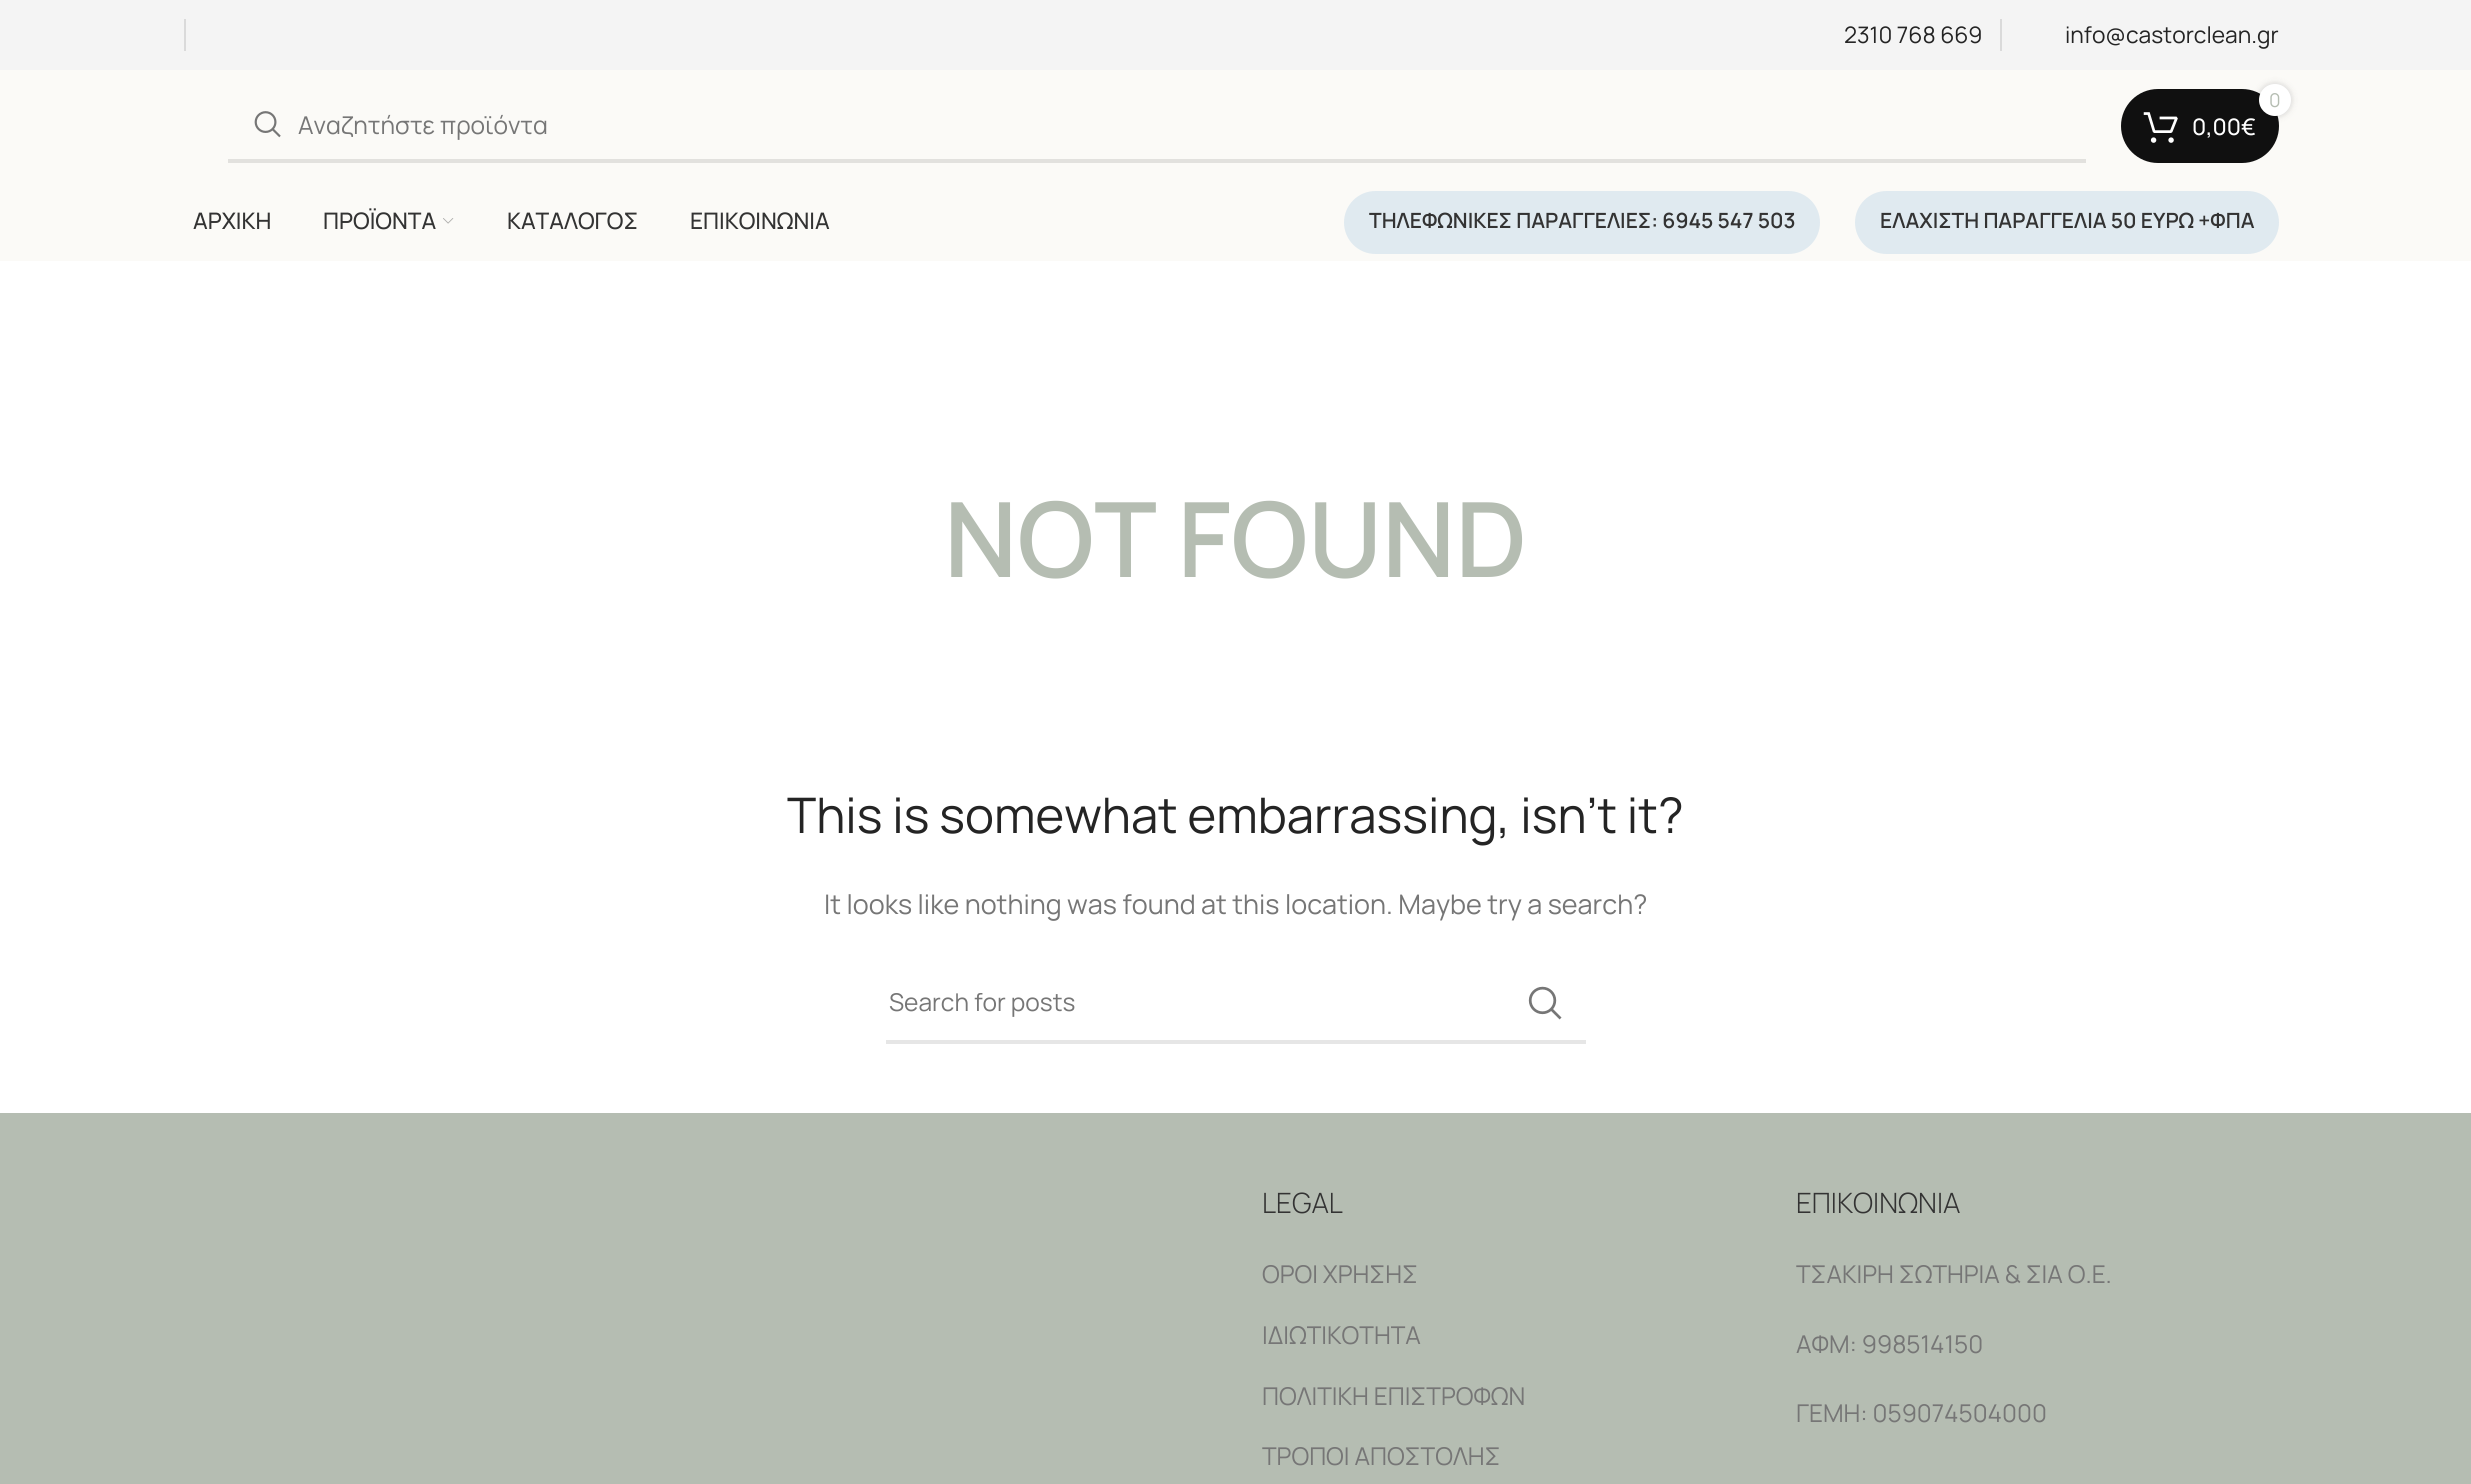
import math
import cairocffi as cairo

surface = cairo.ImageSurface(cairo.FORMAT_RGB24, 2471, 1484)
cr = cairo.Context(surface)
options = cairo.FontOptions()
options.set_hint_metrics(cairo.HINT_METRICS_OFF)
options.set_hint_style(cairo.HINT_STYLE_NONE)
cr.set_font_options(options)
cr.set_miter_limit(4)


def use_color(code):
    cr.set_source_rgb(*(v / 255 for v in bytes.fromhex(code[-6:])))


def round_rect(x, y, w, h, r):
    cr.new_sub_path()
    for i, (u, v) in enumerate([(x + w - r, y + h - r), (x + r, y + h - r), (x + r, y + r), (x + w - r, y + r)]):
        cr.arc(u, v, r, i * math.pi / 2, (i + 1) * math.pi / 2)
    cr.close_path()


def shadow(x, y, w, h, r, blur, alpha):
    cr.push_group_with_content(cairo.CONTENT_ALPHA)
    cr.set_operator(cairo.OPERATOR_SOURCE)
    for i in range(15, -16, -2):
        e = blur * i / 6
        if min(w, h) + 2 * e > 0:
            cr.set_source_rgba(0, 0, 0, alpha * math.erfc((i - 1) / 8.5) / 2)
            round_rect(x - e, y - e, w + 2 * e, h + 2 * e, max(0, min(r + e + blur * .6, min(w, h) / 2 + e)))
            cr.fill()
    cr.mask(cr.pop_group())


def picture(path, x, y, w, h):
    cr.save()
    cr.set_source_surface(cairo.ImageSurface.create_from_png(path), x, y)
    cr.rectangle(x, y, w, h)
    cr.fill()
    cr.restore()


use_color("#ffffff")
cr.paint()
use_color("#f4f4f4")
cr.rectangle(0, 0, 2471, 70)
cr.fill()
use_color("#dadada")
cr.rectangle(184, 19, 2, 32)
cr.fill()
cr.select_font_face("Manrope")
cr.set_font_size(22.75)
use_color("#242424")
cr.move_to(1844, 43)
cr.show_text("2310 768 669")
use_color("#dadada")
cr.rectangle(2000, 19, 2, 32)
cr.fill()
use_color("#242424")
cr.move_to(2065, 43)
cr.show_text("info@castorclean.gr")
use_color("#fbfaf7")
cr.rectangle(0, 70, 2471, 191)
cr.fill()
picture("img1.png", 254, 111, 27, 27)
use_color("#e2e1de")
cr.rectangle(228, 159, 1858, 4)
cr.fill()
cr.set_font_size(24.5)
use_color("#767676")
cr.move_to(298, 134)
cr.show_text("Αναζητήστε προϊόντα")
use_color("#101010")
round_rect(2121, 89, 158, 74, 37)
cr.fill()
use_color("#000000")
shadow(2259, 84, 32, 32, 16, 3.5, 0.17)
use_color("#ffffff")
cr.arc(2275, 100, 16, 0, 2 * math.pi)
cr.fill()
cr.set_font_size(19)
use_color("#b5bdb2")
cr.move_to(2269, 107)
cr.show_text("0")
picture("img2.png", 2143, 112, 35, 31)
cr.select_font_face("Manrope Medium")
cr.set_font_size(22.75)
use_color("#ffffff")
cr.move_to(2192, 135)
cr.show_text("0,00€")
use_color("#333333")
cr.move_to(193, 229)
cr.show_text("ΑΡΧΙΚΗ")
cr.move_to(323, 229)
cr.show_text("ΠΡΟΪΟΝΤΑ")
picture("img3.png", 443, 218, 11, 6)
cr.move_to(507, 229)
cr.show_text("ΚΑΤΑΛΟΓΟΣ")
cr.move_to(690, 229)
cr.show_text("ΕΠΙΚΟΙΝΩΝΙΑ")
use_color("#e0eaf0")
round_rect(1344, 191, 476, 63, 31.5)
cr.fill()
cr.select_font_face("Manrope SemiBold")
cr.set_font_size(21)
use_color("#333333")
cr.move_to(1369, 228)
cr.show_text("ΤΗΛΕΦΩΝΙΚΕΣ ΠΑΡΑΓΓΕΛΙΕΣ: 6945 547 503")
use_color("#e0eaf0")
round_rect(1855, 191, 424, 63, 31.5)
cr.fill()
use_color("#333333")
cr.move_to(1880, 228)
cr.show_text("ΕΛΑΧΙΣΤΗ ΠΑΡAΓΓΕΛΙΑ 50 ΕΥΡΩ +ΦΠΑ")
cr.set_font_size(103.75)
use_color("#b5bdb2")
cr.move_to(944, 577)
cr.show_text("NOT FOUND")
cr.select_font_face("Manrope")
cr.set_font_size(49)
use_color("#242424")
cr.move_to(787, 833)
cr.show_text("This is somewhat embarrassing, isn’t it?")
cr.set_font_size(26.95)
use_color("#767676")
cr.move_to(824, 914)
cr.show_text("It looks like nothing was found at this location. Maybe try a search?")
use_color("#e6e6e6")
cr.rectangle(886, 1040, 700, 4)
cr.fill()
cr.set_font_size(24.5)
use_color("#767676")
cr.move_to(889, 1011)
cr.show_text("Search for posts")
picture("img4.png", 1528, 986, 34, 34)
use_color("#b5bdb2")
cr.rectangle(0, 1113, 2471, 371)
cr.fill()
cr.select_font_face("Manrope Light")
cr.set_font_size(28)
use_color("#333333")
cr.move_to(1262, 1213)
cr.show_text("LEGAL")
cr.select_font_face("Manrope")
cr.set_font_size(24.5)
use_color("#767676")
cr.move_to(1262, 1283)
cr.show_text("ΟΡΟΙ ΧΡΗΣΗΣ")
cr.move_to(1262, 1344)
cr.show_text("ΙΔΙΩΤΙΚΟΤΗΤΑ")
cr.move_to(1262, 1405)
cr.show_text("ΠΟΛΙΤΙΚΗ ΕΠΙΣΤΡΟΦΩΝ")
cr.move_to(1262, 1465)
cr.show_text("ΤΡΟΠΟΙ ΑΠΟΣΤΟΛΗΣ")
cr.select_font_face("Manrope Light")
cr.set_font_size(28)
use_color("#333333")
cr.move_to(1796, 1213)
cr.show_text("ΕΠΙΚΟΙΝΩΝΙΑ")
cr.select_font_face("Manrope")
cr.set_font_size(24.5)
use_color("#767676")
cr.move_to(1796, 1283)
cr.show_text("ΤΣΑΚΙΡΗ ΣΩΤΗΡΙΑ & ΣΙΑ Ο.Ε.")
cr.move_to(1796, 1353)
cr.show_text("ΑΦΜ: 998514150")
cr.move_to(1796, 1422)
cr.show_text("ΓΕΜΗ: 059074504000")
surface.write_to_png("result.png")
